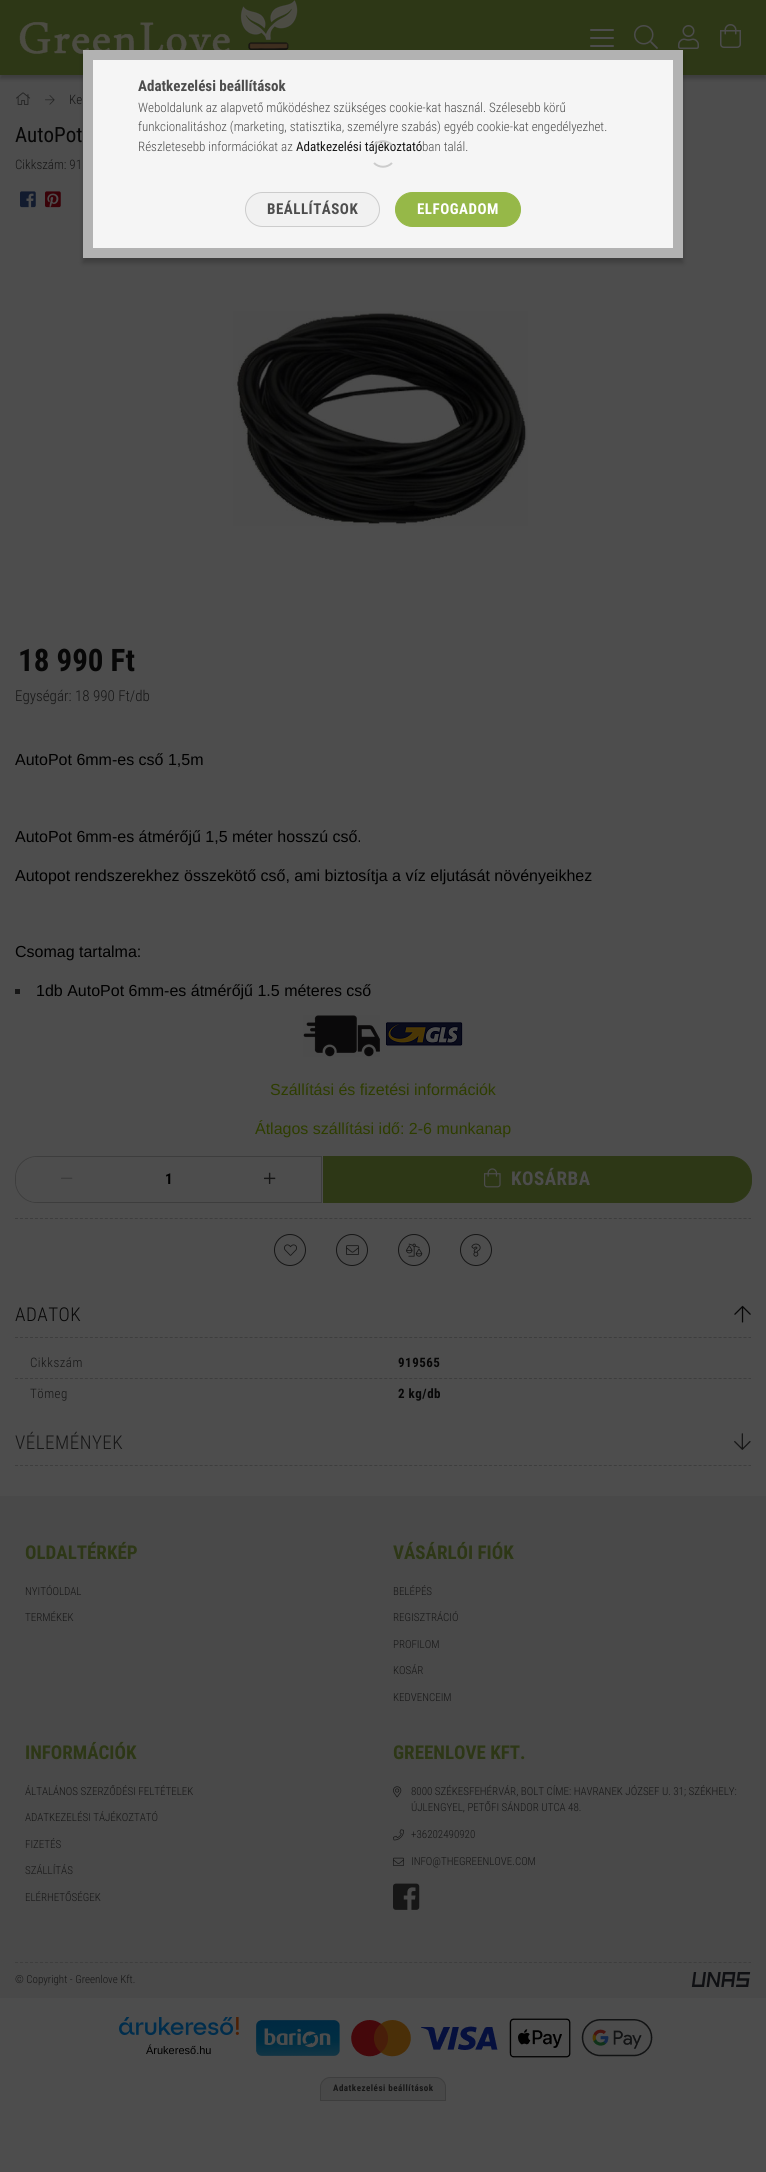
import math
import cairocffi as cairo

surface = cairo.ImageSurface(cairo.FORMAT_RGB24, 766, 2172)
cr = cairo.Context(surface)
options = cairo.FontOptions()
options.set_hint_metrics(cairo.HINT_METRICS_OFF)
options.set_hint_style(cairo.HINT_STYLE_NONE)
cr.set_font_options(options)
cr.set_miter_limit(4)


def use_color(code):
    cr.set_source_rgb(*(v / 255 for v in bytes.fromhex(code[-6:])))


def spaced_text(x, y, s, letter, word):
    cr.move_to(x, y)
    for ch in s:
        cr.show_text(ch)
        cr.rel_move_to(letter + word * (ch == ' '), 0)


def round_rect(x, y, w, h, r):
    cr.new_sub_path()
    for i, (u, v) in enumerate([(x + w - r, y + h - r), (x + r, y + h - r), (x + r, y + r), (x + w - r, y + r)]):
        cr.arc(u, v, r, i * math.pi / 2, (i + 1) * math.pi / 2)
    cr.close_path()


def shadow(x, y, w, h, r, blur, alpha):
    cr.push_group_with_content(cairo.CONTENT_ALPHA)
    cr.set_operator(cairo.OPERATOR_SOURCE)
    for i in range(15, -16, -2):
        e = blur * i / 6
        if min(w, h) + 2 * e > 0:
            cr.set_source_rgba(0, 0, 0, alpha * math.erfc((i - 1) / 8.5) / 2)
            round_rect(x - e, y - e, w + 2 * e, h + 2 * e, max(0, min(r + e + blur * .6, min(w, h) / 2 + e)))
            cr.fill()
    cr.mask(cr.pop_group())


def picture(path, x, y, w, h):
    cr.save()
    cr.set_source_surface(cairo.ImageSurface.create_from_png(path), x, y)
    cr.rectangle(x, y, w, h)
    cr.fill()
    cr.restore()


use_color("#4d4d4d")
cr.paint()
use_color("#000000")
shadow(0, 4, 766, 75, 0, 2, 0.2)
use_color("#2d3716")
cr.rectangle(0, 0, 766, 75)
cr.fill()
picture("img1.png", 19, 0, 279, 73)
use_color("#4d4d4d")
round_rect(590, 45, 24, 2, 1)
cr.fill()
picture("img2.png", 634, 25, 24, 24)
picture("img3.png", 678, 25, 21, 24)
use_color("#000000")
shadow(83, 55, 600, 208, 0, 2.5, 0.2)
cr.rectangle(88, 55, 590, 198)
use_color("#b2b2b2")
cr.set_line_width(10)
cr.stroke()
use_color("#f5f5f5")
cr.rectangle(93, 60, 580, 188)
cr.fill()
cr.select_font_face("Roboto Condensed", cairo.FONT_SLANT_NORMAL, cairo.FONT_WEIGHT_BOLD)
cr.set_font_size(15)
use_color("#4d4d4d")
cr.move_to(138, 91)
cr.show_text("Adatkezelési beállítások")
cr.select_font_face("Roboto Condensed Light")
cr.set_font_size(13)
cr.move_to(138, 112)
cr.show_text("Weboldalunk az alapvető működéshez szükséges cookie-kat használ. Szélesebb körű")
cr.move_to(138, 131)
cr.show_text("funkcionalitáshoz (marketing, statisztika, személyre szabás) egyéb cookie-kat engedélyezhet.")
cr.move_to(138, 151)
cr.show_text("Részletesebb információkat az")
cr.select_font_face("Roboto Condensed")
use_color("#161616")
cr.move_to(296, 151)
cr.show_text("Adatkezelési tájékoztató")
cr.select_font_face("Roboto Condensed Light")
use_color("#4d4d4d")
cr.move_to(422, 151)
cr.show_text("ban talál.")
use_color("#f1f1f1")
round_rect(245.5, 192.5, 134, 34, 17)
cr.fill_preserve()
use_color("#cccccc")
cr.set_line_width(1)
cr.stroke()
cr.select_font_face("Roboto Condensed", cairo.FONT_SLANT_NORMAL, cairo.FONT_WEIGHT_BOLD)
cr.set_font_size(15)
use_color("#4d4d4d")
spaced_text(267, 214, "BEÁLLÍTÁSOK", 0.5, 0)
use_color("#96b848")
round_rect(395.5, 192.5, 125, 34, 17)
cr.fill_preserve()
cr.stroke()
use_color("#ffffff")
spaced_text(417, 214, "ELFOGADOM", 0.5, 0)
cr.new_path()
cr.move_to(374, 145)
cr.curve_to(379, 140, 387, 140, 392, 145)
cr.move_to(392, 163)
cr.curve_to(387, 168, 379, 168, 374, 163)
use_color("#cccccc")
cr.set_line_width(2)
cr.stroke()
use_color("#4d4d4d")
round_rect(590, 29, 24, 2, 1)
cr.fill()
round_rect(590, 37, 24, 2, 1)
cr.fill()
picture("img4.png", 720, 24, 21, 24)
picture("img5.png", 16, 92, 15, 13)
picture("img6.png", 45, 95, 10, 10)
cr.select_font_face("Roboto Condensed Light")
cr.set_font_size(13)
use_color("#161616")
cr.move_to(69, 104)
cr.show_text("Ke")
cr.select_font_face("Roboto Condensed")
cr.set_font_size(21)
use_color("#070707")
cr.move_to(15, 142)
cr.show_text("AutoPot")
cr.select_font_face("Roboto Condensed Light")
cr.set_font_size(13)
use_color("#161616")
cr.move_to(15, 169)
cr.show_text("Cikkszám: 91")
picture("img7.png", 20, 191, 16, 17)
picture("img8.png", 45, 191, 16, 17)
picture("img9.png", 233, 311, 295, 215)
cr.select_font_face("Roboto Condensed", cairo.FONT_SLANT_NORMAL, cairo.FONT_WEIGHT_BOLD)
cr.set_font_size(31)
use_color("#070707")
cr.move_to(18, 671)
cr.show_text("18 990 Ft")
cr.select_font_face("Roboto Condensed Light")
cr.set_font_size(15)
use_color("#161616")
cr.move_to(15, 701)
cr.show_text("Egységár: 18 990 Ft/db")
cr.select_font_face("Liberation Sans")
cr.set_font_size(16)
use_color("#000000")
cr.move_to(15, 765)
cr.show_text("AutoPot 6mm-es cső 1,5m")
cr.move_to(15, 842)
cr.show_text("AutoPot 6mm-es átmérőjű 1,5 méter hosszú cső.")
cr.move_to(15, 881)
cr.show_text("Autopot rendszerekhez összekötő cső, ami biztosítja a víz eljutását növényeikhez")
cr.move_to(15, 957)
cr.show_text("Csomag tartalma:")
use_color("#161616")
cr.rectangle(15, 989, 5, 5)
cr.fill()
use_color("#000000")
cr.move_to(36, 996)
cr.show_text("1db AutoPot 6mm-es átmérőjű 1.5 méteres cső")
picture("img10.png", 303, 1015, 77, 42)
picture("img11.png", 386, 1022, 77, 24)
use_color("#2e3d00")
cr.move_to(270, 1095)
cr.show_text("Szállítási és fizetési információk")
cr.move_to(255, 1134)
cr.show_text("Átlagos szállítási idő: 2-6 munkanap")
cr.new_path()
cr.move_to(37, 1156.5)
cr.line_to(321.5, 1156.5)
cr.line_to(321.5, 1202.5)
cr.line_to(37, 1202.5)
cr.curve_to(25, 1202.5, 15.5, 1193, 15.5, 1181)
cr.line_to(15.5, 1178)
cr.curve_to(15.5, 1166, 25, 1156.5, 37, 1156.5)
cr.close_path()
use_color("#3d3d3d")
cr.set_line_width(1)
cr.stroke()
use_color("#4d4d4d")
cr.new_path()
cr.move_to(37, 1157)
cr.line_to(118, 1157)
cr.line_to(118, 1202)
cr.line_to(37, 1202)
cr.curve_to(25.5, 1202, 16, 1192.5, 16, 1181)
cr.line_to(16, 1178)
cr.curve_to(16, 1166.5, 25.5, 1157, 37, 1157)
cr.close_path()
cr.fill()
picture("img12.png", 61, 1177, 12, 2)
cr.select_font_face("Roboto Condensed", cairo.FONT_SLANT_NORMAL, cairo.FONT_WEIGHT_BOLD)
cr.set_font_size(15)
use_color("#000000")
cr.move_to(165, 1184)
cr.show_text("1")
picture("img13.png", 264, 1172, 12, 12)
use_color("#2d3716")
cr.new_path()
cr.move_to(323.5, 1156.5)
cr.line_to(730, 1156.5)
cr.curve_to(742, 1156.5, 751.5, 1166, 751.5, 1178)
cr.line_to(751.5, 1181)
cr.curve_to(751.5, 1193, 742, 1202.5, 730, 1202.5)
cr.line_to(323.5, 1202.5)
cr.close_path()
cr.fill_preserve()
cr.stroke()
picture("img14.png", 484, 1168, 17, 20)
cr.set_font_size(19)
use_color("#4d4d4d")
spaced_text(511, 1185, "KOSÁRBA", 0.5, 0)
cr.new_path()
cr.move_to(15, 1218.5)
cr.line_to(751, 1218.5)
use_color("#3d3d3d")
cr.set_dash([3, 1.99])
cr.stroke()
cr.arc(290, 1250, 15.5, 0, 2 * math.pi)
use_color("#161616")
cr.set_dash([])
cr.stroke()
picture("img15.png", 284, 1244, 13, 12)
cr.arc(352, 1250, 15.5, 0, 2 * math.pi)
cr.stroke()
picture("img16.png", 346, 1245, 13, 10)
cr.arc(414, 1250, 15.5, 0, 2 * math.pi)
cr.stroke()
picture("img17.png", 406, 1243, 17, 14)
cr.arc(476, 1250, 15.5, 0, 2 * math.pi)
cr.stroke()
picture("img18.png", 471, 1243, 10, 14)
cr.new_path()
cr.move_to(15, 1337.5)
cr.line_to(751, 1337.5)
use_color("#3d3d3d")
cr.set_dash([3, 1.99])
cr.stroke()
cr.select_font_face("Roboto Condensed Light")
use_color("#070707")
spaced_text(15, 1321, "ADATOK", 0.5, 0)
picture("img19.png", 734, 1305, 17, 18)
cr.set_font_size(13)
use_color("#161616")
spaced_text(30, 1367, "Cikkszám", 0.5, 0)
cr.select_font_face("Roboto Condensed", cairo.FONT_SLANT_NORMAL, cairo.FONT_WEIGHT_BOLD)
use_color("#070707")
spaced_text(398, 1367, "919565", 0.5, 0)
cr.new_path()
cr.move_to(15, 1378.5)
cr.line_to(751, 1378.5)
use_color("#3d3d3d")
cr.stroke()
cr.select_font_face("Roboto Condensed Light")
use_color("#161616")
spaced_text(30, 1398, "Tömeg", 0.5, 0)
cr.select_font_face("Roboto Condensed", cairo.FONT_SLANT_NORMAL, cairo.FONT_WEIGHT_BOLD)
use_color("#070707")
spaced_text(398, 1398, "2 kg/db", 0.5, 0)
cr.new_path()
cr.move_to(15, 1465.5)
cr.line_to(751, 1465.5)
use_color("#3d3d3d")
cr.stroke()
cr.select_font_face("Roboto Condensed Light")
cr.set_font_size(19)
use_color("#161616")
spaced_text(15, 1449, "VÉLEMÉNYEK", 0.5, 0)
picture("img20.png", 734, 1433, 17, 17)
use_color("#494949")
cr.rectangle(0, 1496, 766, 502)
cr.fill()
cr.select_font_face("Roboto Condensed", cairo.FONT_SLANT_NORMAL, cairo.FONT_WEIGHT_BOLD)
use_color("#2d3716")
cr.move_to(25, 1559)
cr.show_text("OLDALTÉRKÉP")
cr.select_font_face("Roboto Condensed Light")
cr.set_font_size(11)
use_color("#161616")
cr.move_to(25, 1595)
cr.show_text("NYITÓOLDAL")
cr.move_to(25, 1621)
cr.show_text("TERMÉKEK")
cr.select_font_face("Roboto Condensed", cairo.FONT_SLANT_NORMAL, cairo.FONT_WEIGHT_BOLD)
cr.set_font_size(19)
use_color("#2d3716")
cr.move_to(393, 1559)
cr.show_text("VÁSÁRLÓI FIÓK")
cr.select_font_face("Roboto Condensed Light")
cr.set_font_size(11)
use_color("#161616")
cr.move_to(393, 1595)
cr.show_text("BELÉPÉS")
cr.move_to(393, 1621)
cr.show_text("REGISZTRÁCIÓ")
cr.move_to(393, 1648)
cr.show_text("PROFILOM")
cr.move_to(393, 1674)
cr.show_text("KOSÁR")
cr.move_to(393, 1701)
cr.show_text("KEDVENCEIM")
cr.select_font_face("Roboto Condensed", cairo.FONT_SLANT_NORMAL, cairo.FONT_WEIGHT_BOLD)
cr.set_font_size(19)
use_color("#2d3716")
cr.move_to(25, 1759)
cr.show_text("INFORMÁCIÓK")
cr.select_font_face("Roboto Condensed Light")
cr.set_font_size(11)
use_color("#161616")
cr.move_to(25, 1795)
cr.show_text("ÁLTALÁNOS SZERZŐDÉSI FELTÉTELEK")
cr.move_to(25, 1821)
cr.show_text("ADATKEZELÉSI TÁJÉKOZTATÓ")
cr.move_to(25, 1848)
cr.show_text("FIZETÉS")
cr.move_to(25, 1874)
cr.show_text("SZÁLLÍTÁS")
cr.move_to(25, 1901)
cr.show_text("ELÉRHETŐSÉGEK")
cr.select_font_face("Roboto Condensed", cairo.FONT_SLANT_NORMAL, cairo.FONT_WEIGHT_BOLD)
cr.set_font_size(19)
use_color("#2d3716")
cr.move_to(393, 1759)
cr.show_text("GREENLOVE KFT.")
picture("img21.png", 393, 1786, 9, 12)
cr.select_font_face("Roboto Condensed Light")
cr.set_font_size(11)
use_color("#161616")
cr.move_to(411, 1795)
cr.show_text("8000 SZÉKESFEHÉRVÁR, BOLT CÍME: HAVRANEK JÓZSEF U. 31; SZÉKHELY:")
cr.move_to(411, 1811)
cr.show_text("ÚJLENGYEL, PETŐFI SÁNDOR UTCA 48.")
picture("img22.png", 393, 1829, 11, 12)
cr.move_to(411, 1838)
cr.show_text("+36202490920")
picture("img23.png", 393, 1857, 11, 9)
cr.move_to(411, 1865)
cr.show_text("INFO@THEGREENLOVE.COM")
picture("img24.png", 393, 1883, 27, 27)
cr.new_path()
cr.move_to(15, 1962.5)
cr.line_to(751, 1962.5)
use_color("#3d3d3d")
cr.stroke()
use_color("#161616")
cr.move_to(15, 1983)
cr.show_text("© Copyright - Greenlove Kft.")
picture("img25.png", 691, 1972, 60, 15)
picture("img26.png", 119, 2017, 120, 19)
cr.select_font_face("Liberation Sans")
use_color("#000000")
cr.move_to(146, 2054)
cr.show_text("Árukereső.hu")
picture("img27.png", 256, 2018, 397, 40)
use_color("#484848")
cr.new_path()
cr.move_to(330, 2077.5)
cr.line_to(436, 2077.5)
cr.curve_to(441, 2077.5, 445.5, 2082, 445.5, 2087)
cr.line_to(445.5, 2100.5)
cr.line_to(320.5, 2100.5)
cr.line_to(320.5, 2087)
cr.curve_to(320.5, 2082, 325, 2077.5, 330, 2077.5)
cr.close_path()
cr.fill_preserve()
use_color("#3d3d3d")
cr.set_dash([])
cr.stroke()
cr.select_font_face("Roboto Condensed", cairo.FONT_SLANT_NORMAL, cairo.FONT_WEIGHT_BOLD)
cr.set_font_size(9)
use_color("#161616")
spaced_text(333, 2091, "Adatkezelési beállítások", 0.5, 0)
surface.write_to_png("result.png")
